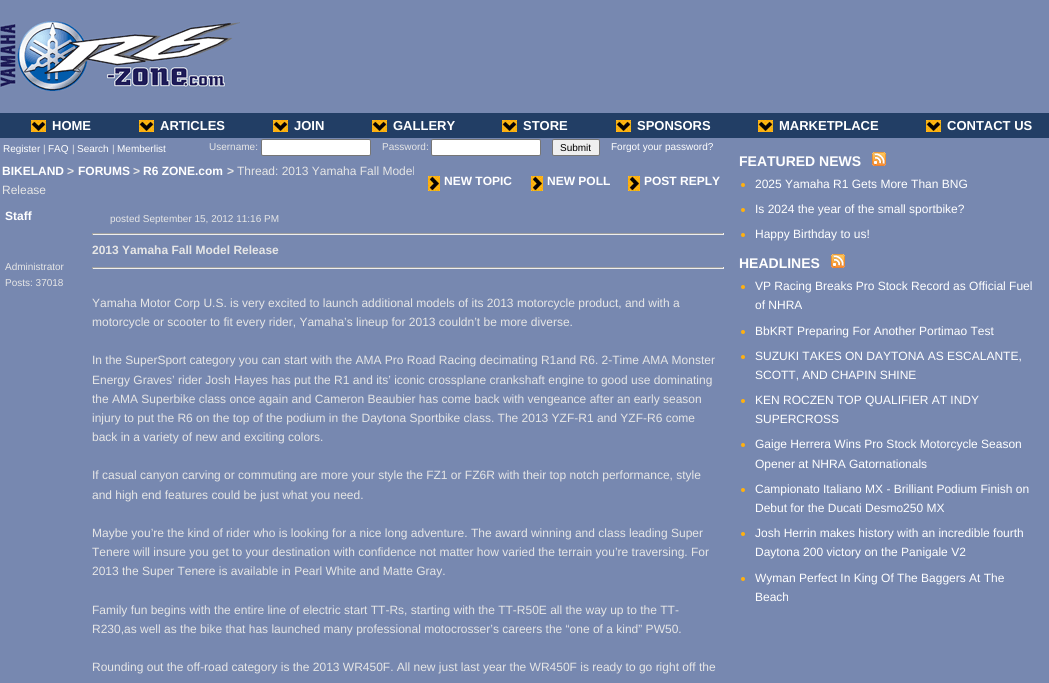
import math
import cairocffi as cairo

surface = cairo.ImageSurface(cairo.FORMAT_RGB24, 1049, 683)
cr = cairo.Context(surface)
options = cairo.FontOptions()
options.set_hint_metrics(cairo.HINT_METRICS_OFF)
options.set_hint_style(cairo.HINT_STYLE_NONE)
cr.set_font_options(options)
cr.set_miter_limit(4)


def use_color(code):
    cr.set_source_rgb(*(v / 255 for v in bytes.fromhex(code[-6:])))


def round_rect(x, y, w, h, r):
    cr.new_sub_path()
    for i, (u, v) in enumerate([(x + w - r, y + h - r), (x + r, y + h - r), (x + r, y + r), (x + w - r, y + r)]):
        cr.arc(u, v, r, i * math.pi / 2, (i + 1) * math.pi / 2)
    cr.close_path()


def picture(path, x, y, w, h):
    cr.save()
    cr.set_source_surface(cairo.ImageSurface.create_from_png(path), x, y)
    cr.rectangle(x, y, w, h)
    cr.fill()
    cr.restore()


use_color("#7788b0")
cr.paint()
picture("img1.png", 0, 21, 240, 70)
use_color("#223e65")
cr.rectangle(0, 113, 1049, 25)
cr.fill()
picture("img2.png", 31, 120, 15, 12)
cr.select_font_face("Liberation Sans", cairo.FONT_SLANT_NORMAL, cairo.FONT_WEIGHT_BOLD)
cr.set_font_size(13)
use_color("#ffffff")
cr.move_to(52, 130)
cr.show_text("HOME")
picture("img2.png", 139, 120, 15, 12)
cr.move_to(160, 130)
cr.show_text("ARTICLES")
picture("img2.png", 273, 120, 15, 12)
cr.move_to(294, 130)
cr.show_text("JOIN")
picture("img2.png", 372, 120, 15, 12)
cr.move_to(393, 130)
cr.show_text("GALLERY")
picture("img2.png", 502, 120, 15, 12)
cr.move_to(523, 130)
cr.show_text("STORE")
picture("img2.png", 616, 120, 15, 12)
cr.move_to(637, 130)
cr.show_text("SPONSORS")
picture("img2.png", 758, 120, 15, 12)
cr.move_to(779, 130)
cr.show_text("MARKETPLACE")
picture("img2.png", 926, 120, 15, 12)
cr.move_to(947, 130)
cr.show_text("CONTACT US")
cr.select_font_face("Liberation Sans")
cr.set_font_size(10)
cr.move_to(3, 152)
cr.show_text("Register")
use_color("#e6e6e6")
cr.move_to(43, 152)
cr.show_text("|")
use_color("#ffffff")
cr.move_to(48, 152)
cr.show_text("FAQ")
use_color("#e6e6e6")
cr.move_to(72, 152)
cr.show_text("|")
use_color("#ffffff")
cr.move_to(77, 152)
cr.show_text("Search")
use_color("#e6e6e6")
cr.move_to(112, 152)
cr.show_text("|")
use_color("#ffffff")
cr.move_to(117, 152)
cr.show_text("Memberlist")
use_color("#e6e6e6")
cr.move_to(209, 150)
cr.show_text("Username:")
use_color("#ffffff")
round_rect(261.5, 139.5, 109, 16, 1.5)
cr.fill_preserve()
use_color("#767676")
cr.set_line_width(1)
cr.stroke()
use_color("#e6e6e6")
cr.move_to(382, 150)
cr.show_text("Password:")
use_color("#ffffff")
round_rect(431.5, 139.5, 109, 16, 1.5)
cr.fill_preserve()
use_color("#767676")
cr.stroke()
use_color("#efefef")
round_rect(552.5, 139.5, 47, 16, 1.5)
cr.fill_preserve()
use_color("#767676")
cr.stroke()
use_color("#000000")
cr.move_to(560, 151)
cr.show_text("Submit")
use_color("#ffffff")
cr.move_to(611, 150)
cr.show_text("Forgot your password?")
cr.select_font_face("Liberation Sans", cairo.FONT_SLANT_NORMAL, cairo.FONT_WEIGHT_BOLD)
cr.set_font_size(12)
cr.move_to(2, 175)
cr.show_text("BIKELAND")
use_color("#e6e6e6")
cr.move_to(67, 175)
cr.show_text(">")
use_color("#ffffff")
cr.move_to(78, 175)
cr.show_text("FORUMS")
use_color("#e6e6e6")
cr.move_to(133, 175)
cr.show_text(">")
use_color("#ffffff")
cr.move_to(143, 175)
cr.show_text("R6 ZONE.com")
use_color("#e6e6e6")
cr.move_to(227, 175)
cr.show_text(">")
cr.select_font_face("Liberation Sans")
cr.move_to(237, 175)
cr.show_text("Thread: 2013 Yamaha Fall Model")
cr.move_to(2, 194)
cr.show_text("Release")
picture("img3.png", 428, 176, 12, 15)
cr.select_font_face("Liberation Sans", cairo.FONT_SLANT_NORMAL, cairo.FONT_WEIGHT_BOLD)
use_color("#ffffff")
cr.move_to(444, 185)
cr.show_text("NEW TOPIC")
picture("img3.png", 531, 176, 12, 15)
cr.move_to(547, 185)
cr.show_text("NEW POLL")
picture("img3.png", 628, 176, 12, 15)
cr.move_to(644, 185)
cr.show_text("POST REPLY")
cr.move_to(5, 220)
cr.show_text("Staff")
cr.select_font_face("Liberation Sans")
cr.set_font_size(10)
use_color("#e6e6e6")
cr.move_to(5, 270)
cr.show_text("Administrator")
cr.move_to(5, 286)
cr.show_text("Posts: 37018")
cr.move_to(110, 222)
cr.show_text("posted September 15, 2012 11:16 PM")
use_color("#9f9f9f")
cr.rectangle(92, 233, 632, 1)
cr.fill()
use_color("#eeeeee")
cr.rectangle(723, 233, 1, 2)
cr.fill()
cr.rectangle(92, 234, 632, 1)
cr.fill()
use_color("#9f9f9f")
cr.rectangle(92, 233, 1, 2)
cr.fill()
cr.select_font_face("Liberation Sans", cairo.FONT_SLANT_NORMAL, cairo.FONT_WEIGHT_BOLD)
cr.set_font_size(12)
use_color("#e6e6e6")
cr.move_to(92, 254)
cr.show_text("2013 Yamaha Fall Model Release")
use_color("#9f9f9f")
cr.rectangle(92, 267, 632, 1)
cr.fill()
use_color("#eeeeee")
cr.rectangle(723, 267, 1, 2)
cr.fill()
cr.rectangle(92, 268, 632, 1)
cr.fill()
use_color("#9f9f9f")
cr.rectangle(92, 267, 1, 2)
cr.fill()
cr.select_font_face("Liberation Sans")
use_color("#e6e6e6")
cr.move_to(92, 307)
cr.show_text("Yamaha Motor Corp U.S. is very excited to launch additional models of its 2013 motorcycle product, and with a")
cr.move_to(92, 326)
cr.show_text("motorcycle or scooter to fit every rider, Yamaha’s lineup for 2013 couldn’t be more diverse.")
cr.move_to(92, 364)
cr.show_text("In the SuperSport category you can start with the AMA Pro Road Racing decimating R1and R6. 2-Time AMA Monster")
cr.move_to(92, 384)
cr.show_text("Energy Graves’ rider Josh Hayes has put the R1 and its’ iconic crossplane crankshaft engine to good use dominating")
cr.move_to(92, 403)
cr.show_text("the AMA Superbike class once again and Cameron Beaubier has come back with vengeance after an early season")
cr.move_to(92, 422)
cr.show_text("injury to put the R6 on the top of the podium in the Daytona Sportbike class. The 2013 YZF-R1 and YZF-R6 come")
cr.move_to(92, 441)
cr.show_text("back in a variety of new and exciting colors.")
cr.move_to(92, 479)
cr.show_text("If casual canyon carving or commuting are more your style the FZ1 or FZ6R with their top notch performance, style")
cr.move_to(92, 499)
cr.show_text("and high end features could be just what you need.")
cr.move_to(92, 537)
cr.show_text("Maybe you’re the kind of rider who is looking for a nice long adventure. The award winning and class leading Super")
cr.move_to(92, 556)
cr.show_text("Tenere will insure you get to your destination with confidence not matter how varied the terrain you’re traversing. For")
cr.move_to(92, 575)
cr.show_text("2013 the Super Tenere is available in Pearl White and Matte Gray.")
cr.move_to(92, 614)
cr.show_text("Family fun begins with the entire line of electric start TT-Rs, starting with the TT-R50E all the way up to the TT-")
cr.move_to(92, 633)
cr.show_text("R230,as well as the bike that has launched many professional motocrosser’s careers the “one of a kind” PW50.")
cr.move_to(92, 671)
cr.show_text("Rounding out the off-road category is the 2013 WR450F. All new just last year the WR450F is ready to go right off the")
cr.select_font_face("Liberation Sans", cairo.FONT_SLANT_NORMAL, cairo.FONT_WEIGHT_BOLD)
cr.set_font_size(14)
use_color("#ffffff")
cr.move_to(739, 166)
cr.show_text("FEATURED NEWS")
picture("img4.png", 872, 152, 14, 14)
use_color("#ffb00f")
cr.arc(743, 185, 2, 0, 2 * math.pi)
cr.fill()
cr.select_font_face("Liberation Sans")
cr.set_font_size(12)
use_color("#ffffff")
cr.move_to(755, 188)
cr.show_text("2025 Yamaha R1 Gets More Than BNG")
use_color("#ffb00f")
cr.new_path()
cr.arc(743, 210, 2, 0, 2 * math.pi)
cr.fill()
use_color("#ffffff")
cr.move_to(755, 213)
cr.show_text("Is 2024 the year of the small sportbike?")
use_color("#ffb00f")
cr.new_path()
cr.arc(743, 235, 2, 0, 2 * math.pi)
cr.fill()
use_color("#ffffff")
cr.move_to(755, 238)
cr.show_text("Happy Birthday to us!")
cr.select_font_face("Liberation Sans", cairo.FONT_SLANT_NORMAL, cairo.FONT_WEIGHT_BOLD)
cr.set_font_size(14)
cr.move_to(739, 268)
cr.show_text("HEADLINES")
picture("img4.png", 831, 254, 14, 14)
use_color("#ffb00f")
cr.arc(743, 287, 2, 0, 2 * math.pi)
cr.fill()
cr.select_font_face("Liberation Sans")
cr.set_font_size(12)
use_color("#ffffff")
cr.move_to(755, 290)
cr.show_text("VP Racing Breaks Pro Stock Record as Official Fuel")
cr.move_to(755, 309)
cr.show_text("of NHRA")
use_color("#ffb00f")
cr.new_path()
cr.arc(743, 332, 2, 0, 2 * math.pi)
cr.fill()
use_color("#ffffff")
cr.move_to(755, 335)
cr.show_text("BbKRT Preparing For Another Portimao Test")
use_color("#ffb00f")
cr.new_path()
cr.arc(743, 357, 2, 0, 2 * math.pi)
cr.fill()
use_color("#ffffff")
cr.move_to(755, 360)
cr.show_text("SUZUKI TAKES ON DAYTONA AS ESCALANTE,")
cr.move_to(755, 379)
cr.show_text("SCOTT, AND CHAPIN SHINE")
use_color("#ffb00f")
cr.new_path()
cr.arc(743, 401, 2, 0, 2 * math.pi)
cr.fill()
use_color("#ffffff")
cr.move_to(755, 404)
cr.show_text("KEN ROCZEN TOP QUALIFIER AT INDY")
cr.move_to(755, 423)
cr.show_text("SUPERCROSS")
use_color("#ffb00f")
cr.new_path()
cr.arc(743, 445, 2, 0, 2 * math.pi)
cr.fill()
use_color("#ffffff")
cr.move_to(755, 448)
cr.show_text("Gaige Herrera Wins Pro Stock Motorcycle Season")
cr.move_to(755, 468)
cr.show_text("Opener at NHRA Gatornationals")
use_color("#ffb00f")
cr.new_path()
cr.arc(743, 490, 2, 0, 2 * math.pi)
cr.fill()
use_color("#ffffff")
cr.move_to(755, 493)
cr.show_text("Campionato Italiano MX - Brilliant Podium Finish on")
cr.move_to(755, 512)
cr.show_text("Debut for the Ducati Desmo250 MX")
use_color("#ffb00f")
cr.new_path()
cr.arc(743, 534, 2, 0, 2 * math.pi)
cr.fill()
use_color("#ffffff")
cr.move_to(755, 537)
cr.show_text("Josh Herrin makes history with an incredible fourth")
cr.move_to(755, 556)
cr.show_text("Daytona 200 victory on the Panigale V2")
use_color("#ffb00f")
cr.new_path()
cr.arc(743, 579, 2, 0, 2 * math.pi)
cr.fill()
use_color("#ffffff")
cr.move_to(755, 582)
cr.show_text("Wyman Perfect In King Of The Baggers At The")
cr.move_to(755, 601)
cr.show_text("Beach")
surface.write_to_png("result.png")
